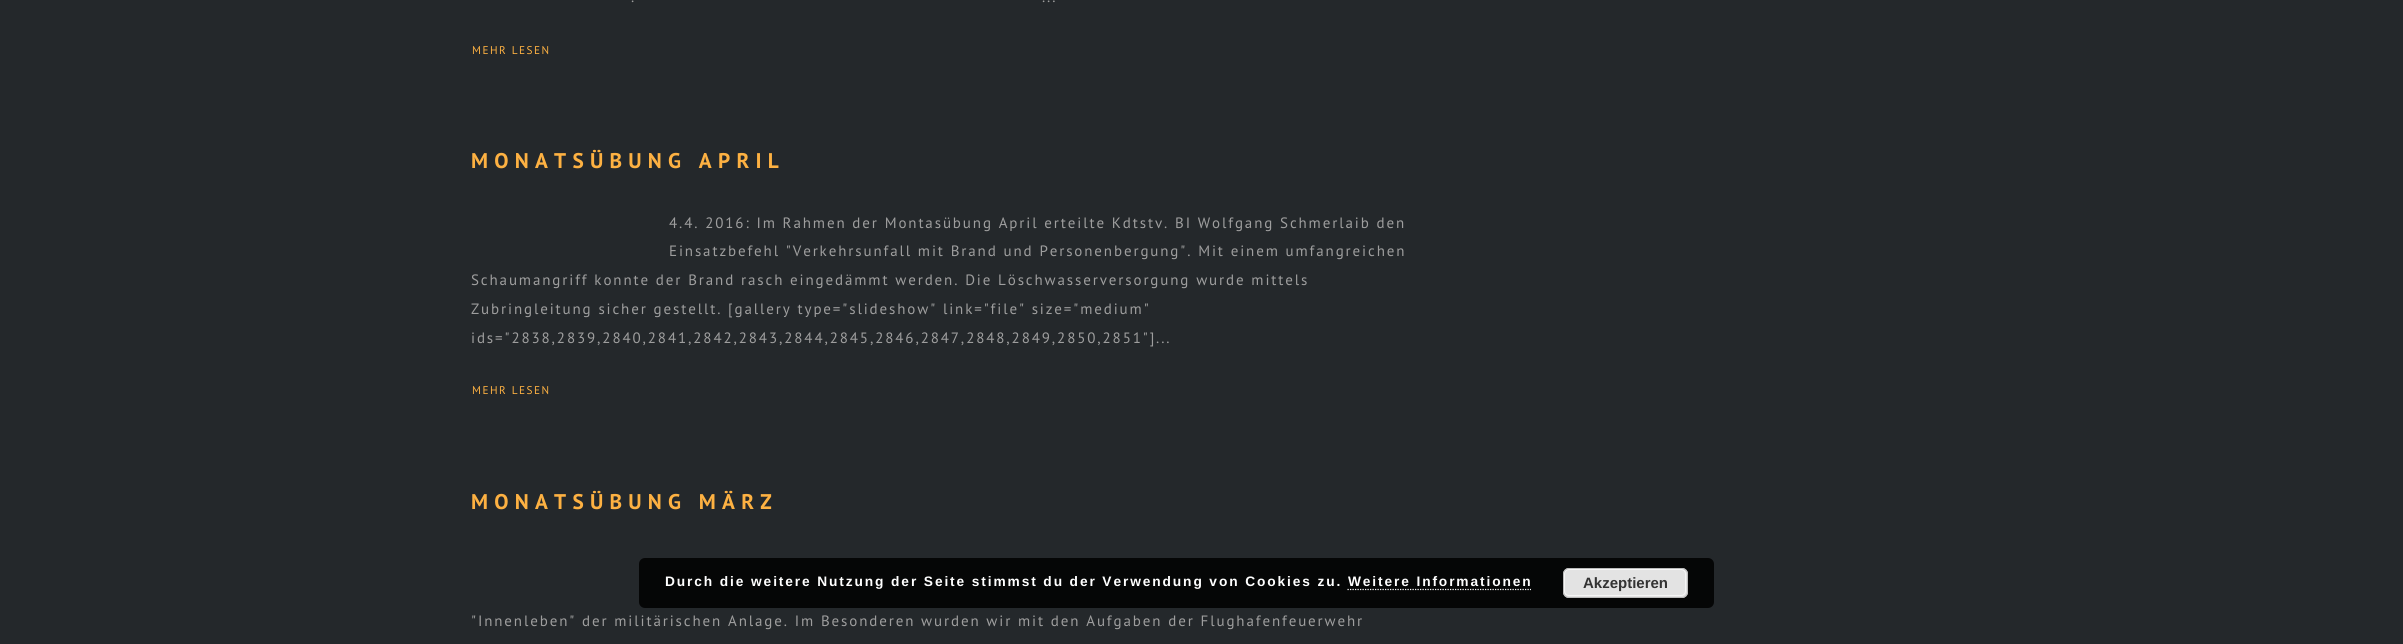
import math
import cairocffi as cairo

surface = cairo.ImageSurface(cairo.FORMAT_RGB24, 2403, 644)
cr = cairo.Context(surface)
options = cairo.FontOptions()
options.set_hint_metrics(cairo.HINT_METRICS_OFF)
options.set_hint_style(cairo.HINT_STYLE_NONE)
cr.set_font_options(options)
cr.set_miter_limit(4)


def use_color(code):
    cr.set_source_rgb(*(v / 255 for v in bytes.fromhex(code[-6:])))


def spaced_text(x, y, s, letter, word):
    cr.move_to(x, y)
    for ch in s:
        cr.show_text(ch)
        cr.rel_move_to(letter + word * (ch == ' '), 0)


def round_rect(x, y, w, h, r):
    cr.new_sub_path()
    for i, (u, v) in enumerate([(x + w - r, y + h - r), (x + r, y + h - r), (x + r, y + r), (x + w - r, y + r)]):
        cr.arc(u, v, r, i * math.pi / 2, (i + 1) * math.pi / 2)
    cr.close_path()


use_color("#24282b")
cr.paint()
cr.select_font_face("PT Sans")
cr.set_font_size(15)
use_color("#9e9e9e")
spaced_text(631, 2, ".", 1.88, 0)
spaced_text(1042, 2, "...", 1.88, 0)
cr.set_font_size(11.25)
use_color("#fdb142")
spaced_text(472, 54, "MEHR LESEN", 1.5, 0)
cr.select_font_face("PT Sans", cairo.FONT_SLANT_NORMAL, cairo.FONT_WEIGHT_BOLD)
cr.set_font_size(21.25)
spaced_text(471, 168, "MONATSÜBUNG APRIL", 6.25, 0)
cr.select_font_face("PT Sans")
cr.set_font_size(15)
use_color("#9e9e9e")
spaced_text(669, 228, "4.4. 2016: Im Rahmen der Montasübung April erteilte Kdtstv. BI Wolfgang Schmerlaib den", 1.88, 0)
spaced_text(669, 256, "Einsatzbefehl \"Verkehrsunfall mit Brand und Personenbergung\". Mit einem umfangreichen", 1.88, 0)
spaced_text(471, 285, "Schaumangriff konnte der Brand rasch eingedämmt werden. Die Löschwasserversorgung wurde mittels", 1.88, 0)
spaced_text(471, 314, "Zubringleitung sicher gestellt. [gallery type=\"slideshow\" link=\"file\" size=\"medium\"", 1.88, 0)
spaced_text(471, 343, "ids=\"2838,2839,2840,2841,2842,2843,2844,2845,2846,2847,2848,2849,2850,2851\"]...", 1.88, 0)
cr.set_font_size(11.25)
use_color("#fdb142")
spaced_text(472, 394, "MEHR LESEN", 1.5, 0)
cr.select_font_face("PT Sans", cairo.FONT_SLANT_NORMAL, cairo.FONT_WEIGHT_BOLD)
cr.set_font_size(21.25)
spaced_text(471, 509, "MONATSÜBUNG MÄRZ", 6.25, 0)
cr.select_font_face("PT Sans")
cr.set_font_size(15)
use_color("#9e9e9e")
spaced_text(471, 626, "\"Innenleben\" der militärischen Anlage. Im Besonderen wurden wir mit den Aufgaben der Flughafenfeuerwehr", 1.88, 0)
cr.set_source_rgba(0, 0, 0, 0.85)
round_rect(639, 558, 1075, 50, 6)
cr.fill()
cr.select_font_face("Liberation Sans", cairo.FONT_SLANT_NORMAL, cairo.FONT_WEIGHT_BOLD)
cr.set_font_size(13.75)
use_color("#ffffff")
spaced_text(665, 586, "Durch die weitere Nutzung der Seite stimmst du der Verwendung von Cookies zu. Weitere Informationen", 1.88, 0)
use_color("#e3e3e3")
round_rect(1563, 568, 125, 30, 6)
cr.fill()
round_rect(1564.5, 569.5, 121, 26, 4.5)
use_color("#f6f6f6")
cr.set_line_width(1)
cr.stroke()
round_rect(1563.5, 568.5, 124, 29, 5.5)
use_color("#bbbbbb")
cr.stroke()
cr.set_font_size(15)
use_color("#333333")
cr.move_to(1583, 588)
cr.show_text("Akzeptieren")
cr.new_path()
cr.move_to(1347.5, 589.5)
cr.line_to(1531, 589.5)
use_color("#ffffff")
cr.set_line_width(1.2)
cr.set_dash([1.25, 1.25])
cr.stroke()
surface.write_to_png("result.png")
